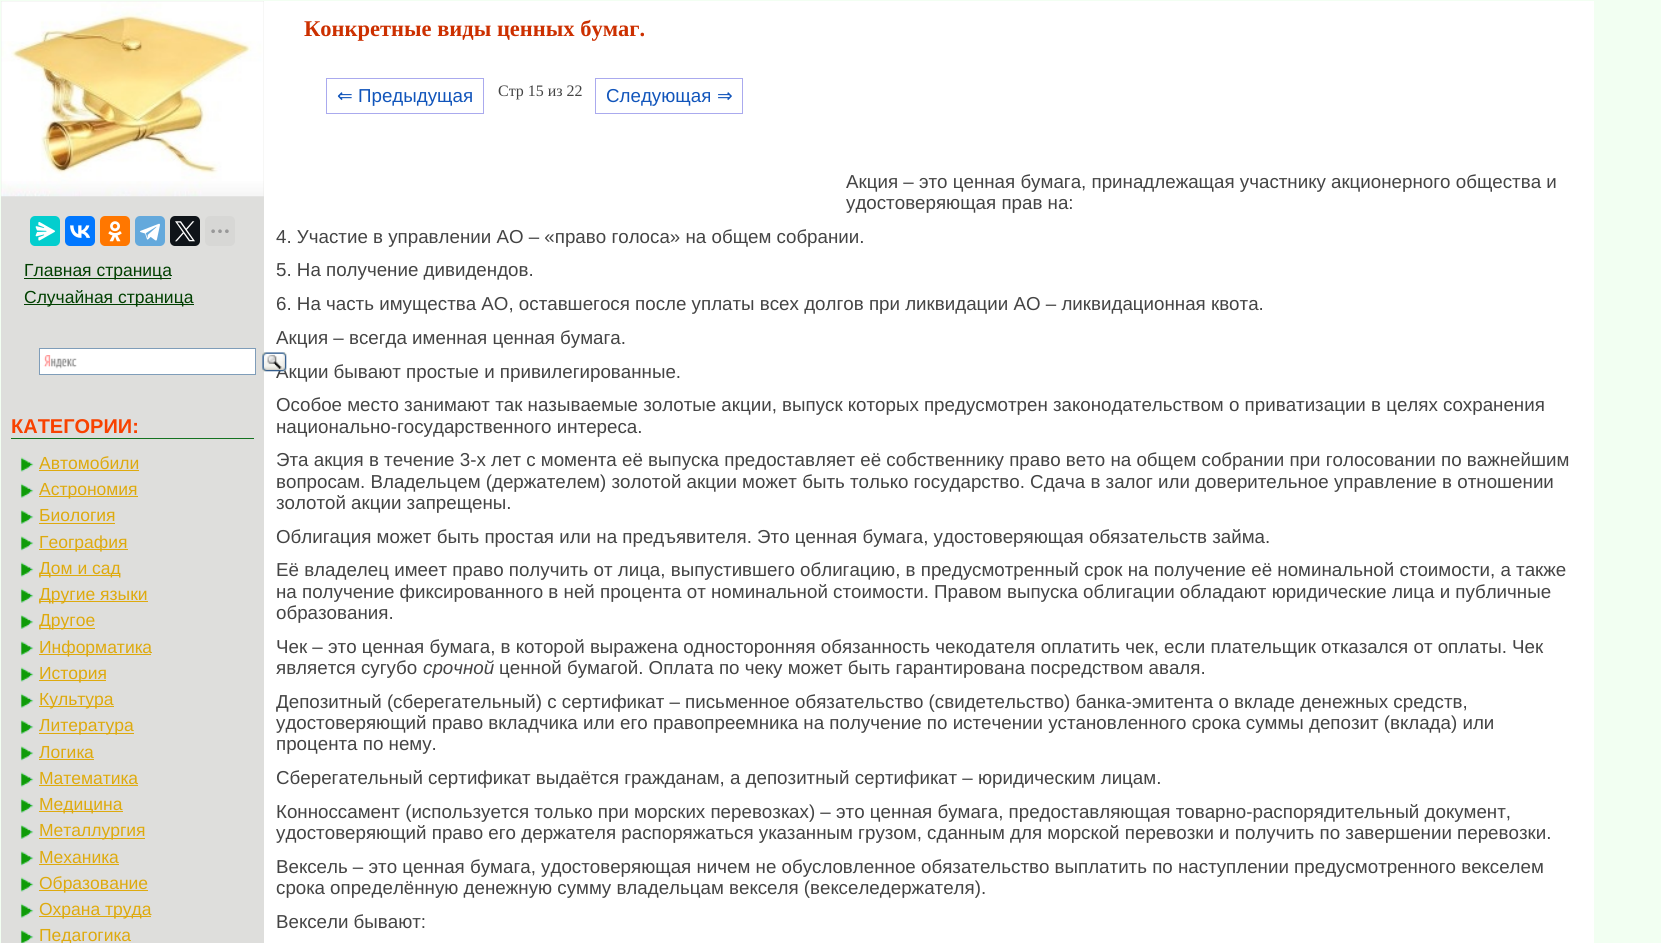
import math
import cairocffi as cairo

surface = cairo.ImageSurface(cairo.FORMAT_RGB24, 1661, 943)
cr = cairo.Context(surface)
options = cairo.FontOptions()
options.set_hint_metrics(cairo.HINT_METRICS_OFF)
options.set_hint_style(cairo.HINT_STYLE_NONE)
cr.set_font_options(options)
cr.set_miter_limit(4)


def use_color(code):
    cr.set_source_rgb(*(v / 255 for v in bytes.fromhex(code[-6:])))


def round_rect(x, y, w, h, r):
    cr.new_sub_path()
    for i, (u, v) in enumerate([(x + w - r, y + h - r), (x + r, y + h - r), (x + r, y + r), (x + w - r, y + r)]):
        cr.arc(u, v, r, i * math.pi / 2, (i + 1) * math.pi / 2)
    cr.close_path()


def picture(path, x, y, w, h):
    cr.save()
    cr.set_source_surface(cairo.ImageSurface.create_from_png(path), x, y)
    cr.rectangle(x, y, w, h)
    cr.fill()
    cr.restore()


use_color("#f2fff2")
cr.paint()
use_color("#dededc")
cr.rectangle(1, 1, 263, 942)
cr.fill()
picture("img1.png", 1, 1, 263, 196)
use_color("#03cece")
round_rect(30, 216, 30, 30, 5)
cr.fill()
picture("img2.png", 35, 222, 20, 19)
use_color("#0077ff")
round_rect(65, 216, 30, 30, 5)
cr.fill()
picture("img3.png", 70, 225, 20, 13)
use_color("#ff7700")
round_rect(100, 216, 30, 30, 5)
cr.fill()
picture("img4.png", 108, 221, 14, 21)
use_color("#64a9dc")
round_rect(135, 216, 30, 30, 5)
cr.fill()
picture("img5.png", 140, 223, 20, 18)
use_color("#0f1419")
round_rect(170, 216, 30, 30, 5)
cr.fill()
picture("img6.png", 175, 221, 20, 21)
use_color("#d7d7d5")
round_rect(205, 216, 30, 30, 5)
cr.fill()
picture("img7.png", 211, 229, 18, 4)
use_color("#004000")
cr.rectangle(24, 278, 147, 1)
cr.fill()
cr.select_font_face("Liberation Sans")
cr.set_font_size(17.5)
cr.move_to(24, 276)
cr.show_text("Главная страница")
cr.rectangle(24, 304, 170, 1)
cr.fill()
cr.move_to(24, 303)
cr.show_text("Случайная страница")
use_color("#ffffff")
cr.rectangle(40, 349, 215, 25)
cr.fill()
picture("img8.png", 43, 355, 34, 14)
cr.rectangle(39.5, 348.5, 216, 26)
use_color("#7f9db9")
cr.set_line_width(1)
cr.stroke()
use_color("#ffffff")
cr.rectangle(264, 1, 1330, 942)
cr.fill()
cr.set_font_size(18.75)
use_color("#444444")
cr.move_to(276, 378)
cr.show_text("Акции бывают простые и привилегированные.")
picture("img9.png", 262, 352, 25, 20)
use_color("#147220")
cr.rectangle(11, 438, 243, 1)
cr.fill()
cr.select_font_face("Liberation Sans", cairo.FONT_SLANT_NORMAL, cairo.FONT_WEIGHT_BOLD)
cr.set_font_size(20)
use_color("#f84200")
cr.move_to(11, 433)
cr.show_text("КАТЕГОРИИ:")
picture("img10.png", 20, 457, 14, 15)
cr.select_font_face("Liberation Sans")
cr.set_font_size(17.5)
use_color("#deaa0e")
cr.move_to(39, 469)
cr.show_text("Автомобили")
cr.rectangle(39, 470, 100, 1)
cr.fill()
picture("img11.png", 20, 483, 14, 15)
cr.rectangle(39, 496, 99, 1)
cr.fill()
cr.move_to(39, 495)
cr.show_text("Астрономия")
picture("img12.png", 20, 510, 14, 14)
cr.move_to(39, 521)
cr.show_text("Биология")
cr.rectangle(39, 523, 76, 1)
cr.fill()
picture("img13.png", 20, 536, 14, 15)
cr.rectangle(39, 549, 89, 1)
cr.fill()
cr.move_to(39, 548)
cr.show_text("География")
picture("img10.png", 20, 562, 14, 15)
cr.rectangle(39, 575, 81, 1)
cr.fill()
cr.move_to(39, 574)
cr.show_text("Дом и сад")
picture("img14.png", 20, 588, 14, 15)
cr.rectangle(39, 601, 109, 1)
cr.fill()
cr.move_to(39, 600)
cr.show_text("Другие языки")
picture("img12.png", 20, 615, 14, 14)
cr.rectangle(39, 628, 56, 1)
cr.fill()
cr.move_to(39, 626)
cr.show_text("Другое")
picture("img13.png", 20, 641, 14, 15)
cr.rectangle(39, 654, 112, 1)
cr.fill()
cr.move_to(39, 653)
cr.show_text("Информатика")
picture("img10.png", 20, 667, 14, 15)
cr.rectangle(39, 680, 67, 1)
cr.fill()
cr.move_to(39, 679)
cr.show_text("История")
picture("img11.png", 20, 693, 14, 15)
cr.rectangle(39, 706, 75, 1)
cr.fill()
cr.move_to(39, 705)
cr.show_text("Культура")
picture("img12.png", 20, 720, 14, 14)
cr.rectangle(39, 733, 95, 1)
cr.fill()
cr.move_to(39, 731)
cr.show_text("Литература")
picture("img13.png", 20, 746, 14, 15)
cr.move_to(39, 758)
cr.show_text("Логика")
cr.rectangle(39, 759, 55, 1)
cr.fill()
picture("img10.png", 20, 772, 14, 15)
cr.move_to(39, 784)
cr.show_text("Математика")
cr.rectangle(39, 785, 99, 1)
cr.fill()
picture("img11.png", 20, 798, 14, 15)
cr.rectangle(39, 811, 84, 1)
cr.fill()
cr.move_to(39, 810)
cr.show_text("Медицина")
picture("img12.png", 20, 825, 14, 14)
cr.rectangle(39, 838, 106, 1)
cr.fill()
cr.move_to(39, 836)
cr.show_text("Металлургия")
picture("img13.png", 20, 851, 14, 15)
cr.move_to(39, 863)
cr.show_text("Механика")
cr.rectangle(39, 864, 80, 1)
cr.fill()
picture("img10.png", 20, 877, 14, 15)
cr.rectangle(39, 890, 109, 1)
cr.fill()
cr.move_to(39, 889)
cr.show_text("Образование")
picture("img11.png", 20, 903, 14, 15)
cr.rectangle(39, 916, 112, 1)
cr.fill()
cr.move_to(39, 915)
cr.show_text("Охрана труда")
picture("img15.png", 20, 930, 14, 13)
cr.move_to(39, 941)
cr.show_text("Педагогика")
cr.select_font_face("Liberation Serif", cairo.FONT_SLANT_NORMAL, cairo.FONT_WEIGHT_BOLD)
cr.set_font_size(22.5)
use_color("#cc3000")
cr.move_to(304, 36)
cr.show_text("Конкретные виды ценных бумаг.")
cr.rectangle(326.5, 78.5, 157, 35)
use_color("#aaaaee")
cr.stroke()
cr.select_font_face("DejaVu Sans")
cr.set_font_size(18.75)
use_color("#1155bb")
cr.move_to(337, 102)
cr.show_text("⇐")
cr.select_font_face("Liberation Sans")
cr.move_to(358, 102)
cr.show_text("Предыдущая")
cr.select_font_face("Liberation Serif")
cr.set_font_size(16)
use_color("#444444")
cr.move_to(498, 96)
cr.show_text("Стр 15 из 22")
cr.rectangle(595.5, 78.5, 147, 35)
use_color("#aaaaee")
cr.stroke()
cr.select_font_face("Liberation Sans")
cr.set_font_size(18.75)
use_color("#1155bb")
cr.move_to(606, 102)
cr.show_text("Следующая")
cr.select_font_face("DejaVu Sans")
cr.move_to(717, 102)
cr.show_text("⇒")
cr.select_font_face("Liberation Sans")
use_color("#444444")
cr.move_to(846, 188)
cr.show_text("Акция – это ценная бумага, принадлежащая участнику акционерного общества и")
cr.move_to(846, 209)
cr.show_text("удостоверяющая прав на:")
cr.move_to(276, 243)
cr.show_text("4. Участие в управлении АО – «право голоса» на общем собрании.")
cr.move_to(276, 276)
cr.show_text("5. На получение дивидендов.")
cr.move_to(276, 310)
cr.show_text("6. На часть имущества АО, оставшегося после уплаты всех долгов при ликвидации АО – ликвидационная квота.")
cr.move_to(276, 344)
cr.show_text("Акция – всегда именная ценная бумага.")
cr.move_to(276, 411)
cr.show_text("Особое место занимают так называемые золотые акции, выпуск которых предусмотрен законодательством о приватизации в целях сохранения")
cr.move_to(276, 433)
cr.show_text("национально-государственного интереса.")
cr.move_to(276, 466)
cr.show_text("Эта акция в течение 3-х лет с момента её выпуска предоставляет её собственнику право вето на общем собрании при голосовании по важнейшим")
cr.move_to(276, 488)
cr.show_text("вопросам. Владельцем (держателем) золотой акции может быть только государство. Сдача в залог или доверительное управление в отношении")
cr.move_to(276, 509)
cr.show_text("золотой акции запрещены.")
cr.move_to(276, 543)
cr.show_text("Облигация может быть простая или на предъявителя. Это ценная бумага, удостоверяющая обязательств займа.")
cr.move_to(276, 576)
cr.show_text("Её владелец имеет право получить от лица, выпустившего облигацию, в предусмотренный срок на получение её номинальной стоимости, а также")
cr.move_to(276, 598)
cr.show_text("на получение фиксированного в ней процента от номинальной стоимости. Правом выпуска облигации обладают юридические лица и публичные")
cr.move_to(276, 619)
cr.show_text("образования.")
cr.move_to(276, 653)
cr.show_text("Чек – это ценная бумага, в которой выражена односторонняя обязанность чекодателя оплатить чек, если плательщик отказался от оплаты. Чек")
cr.move_to(276, 674)
cr.show_text("является сугубо")
cr.select_font_face("Liberation Sans", cairo.FONT_SLANT_ITALIC)
cr.move_to(423, 674)
cr.show_text("срочной")
cr.select_font_face("Liberation Sans")
cr.move_to(499, 674)
cr.show_text("ценной бумагой. Оплата по чеку может быть гарантирована посредством аваля.")
cr.move_to(276, 708)
cr.show_text("Депозитный (сберегательный) с сертификат – письменное обязательство (свидетельство) банка-эмитента о вкладе денежных средств,")
cr.move_to(276, 729)
cr.show_text("удостоверяющий право вкладчика или его правопреемника на получение по истечении установленного срока суммы депозит (вклада) или")
cr.move_to(276, 750)
cr.show_text("процента по нему.")
cr.move_to(276, 784)
cr.show_text("Сберегательный сертификат выдаётся гражданам, а депозитный сертификат – юридическим лицам.")
cr.move_to(276, 818)
cr.show_text("Конноссамент (используется только при морских перевозках) – это ценная бумага, предоставляющая товарно-распорядительный документ,")
cr.move_to(276, 839)
cr.show_text("удостоверяющий право его держателя распоряжаться указанным грузом, сданным для морской перевозки и получить по завершении перевозки.")
cr.move_to(276, 873)
cr.show_text("Вексель – это ценная бумага, удостоверяющая ничем не обусловленное обязательство выплатить по наступлении предусмотренного векселем")
cr.move_to(276, 894)
cr.show_text("срока определённую денежную сумму владельцам векселя (векселедержателя).")
cr.move_to(276, 928)
cr.show_text("Вексели бывают:")
surface.write_to_png("result.png")
